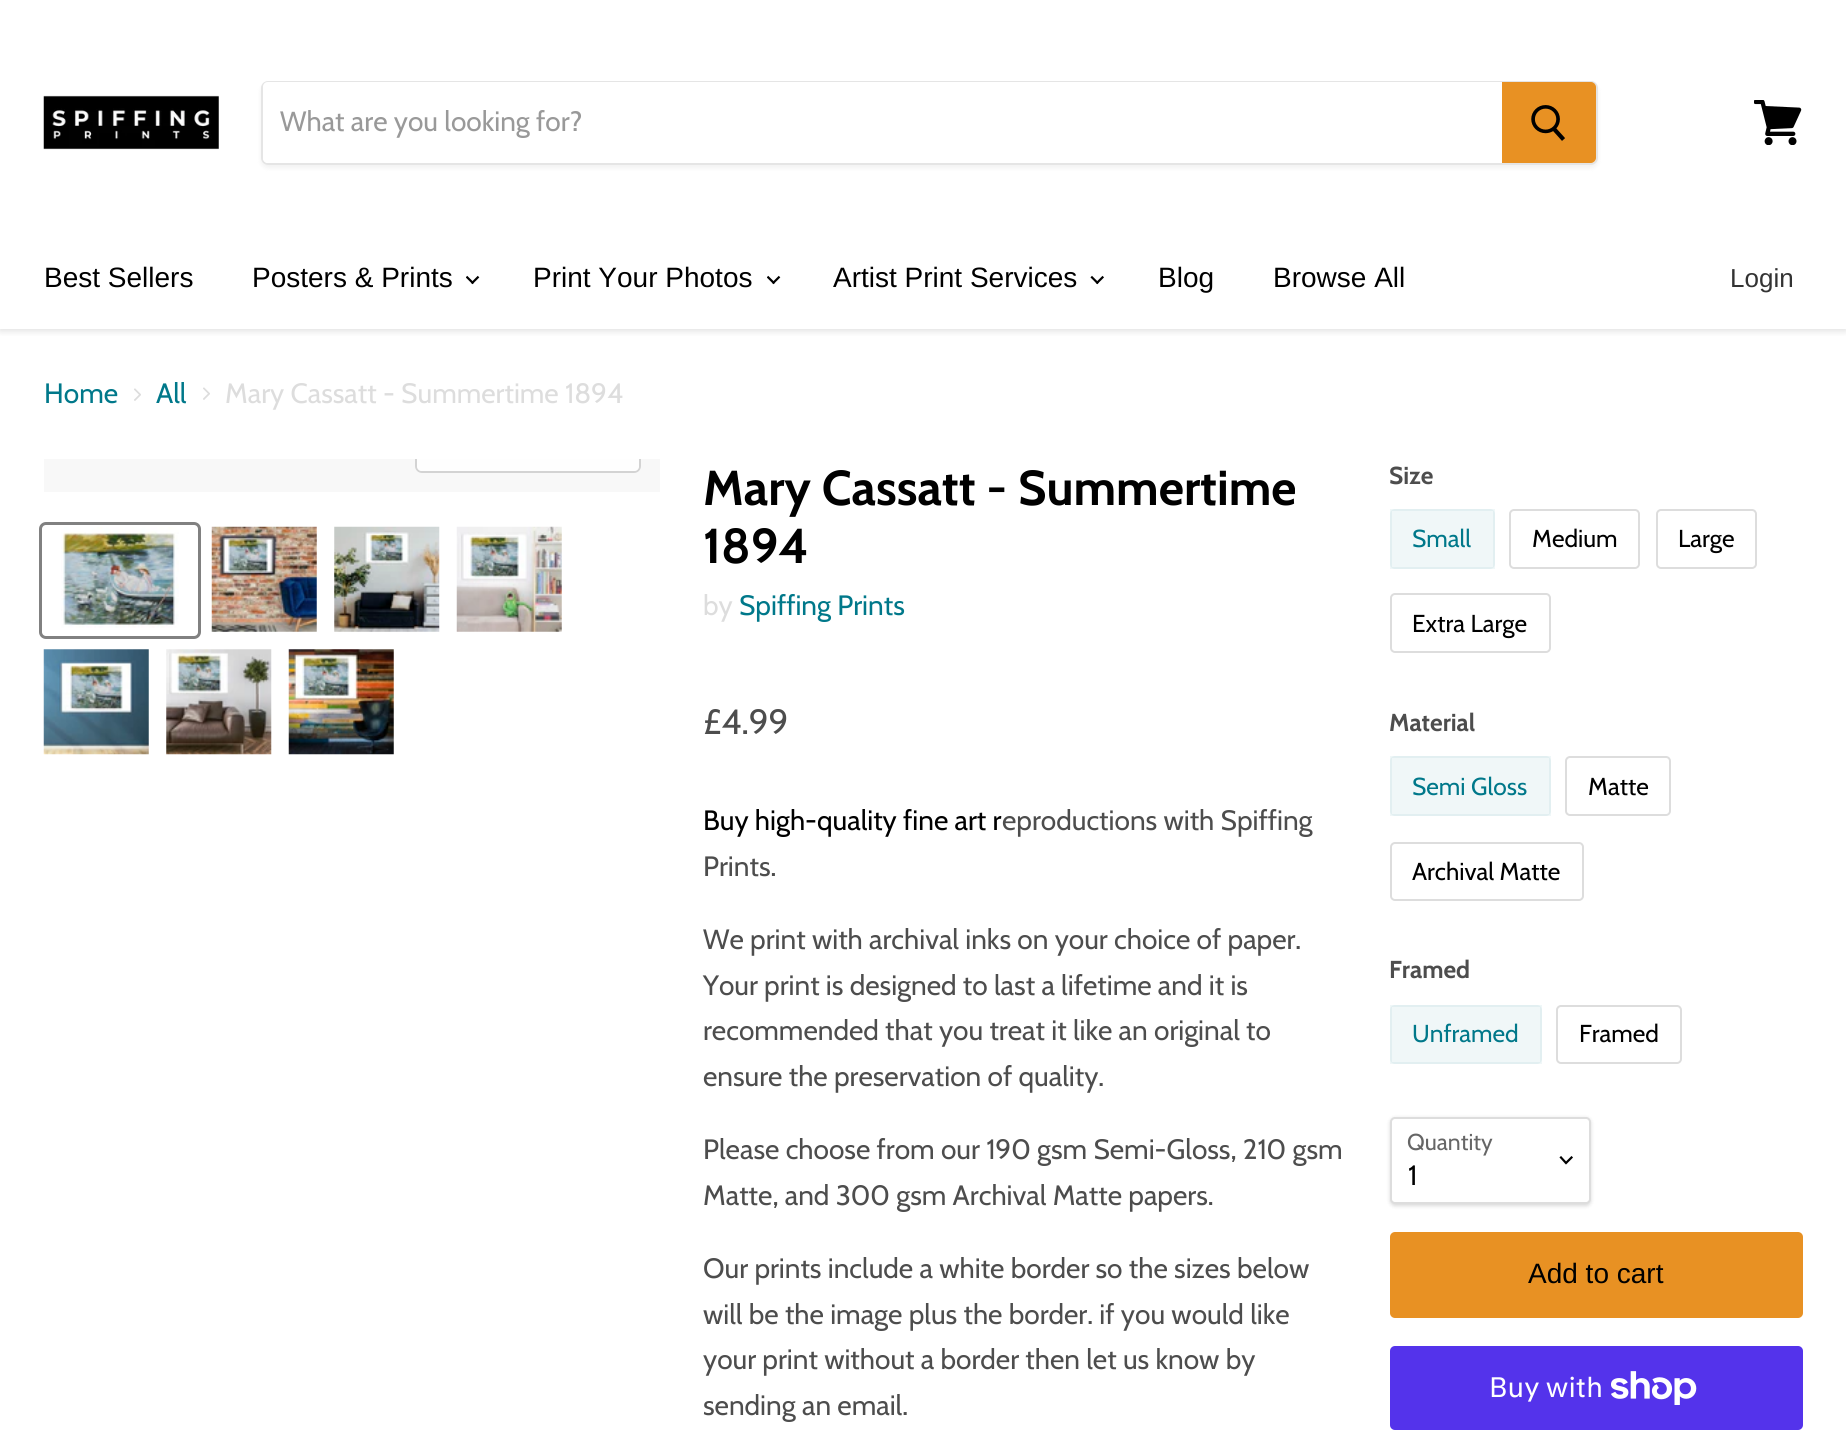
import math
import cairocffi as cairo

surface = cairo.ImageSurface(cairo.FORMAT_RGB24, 1846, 1447)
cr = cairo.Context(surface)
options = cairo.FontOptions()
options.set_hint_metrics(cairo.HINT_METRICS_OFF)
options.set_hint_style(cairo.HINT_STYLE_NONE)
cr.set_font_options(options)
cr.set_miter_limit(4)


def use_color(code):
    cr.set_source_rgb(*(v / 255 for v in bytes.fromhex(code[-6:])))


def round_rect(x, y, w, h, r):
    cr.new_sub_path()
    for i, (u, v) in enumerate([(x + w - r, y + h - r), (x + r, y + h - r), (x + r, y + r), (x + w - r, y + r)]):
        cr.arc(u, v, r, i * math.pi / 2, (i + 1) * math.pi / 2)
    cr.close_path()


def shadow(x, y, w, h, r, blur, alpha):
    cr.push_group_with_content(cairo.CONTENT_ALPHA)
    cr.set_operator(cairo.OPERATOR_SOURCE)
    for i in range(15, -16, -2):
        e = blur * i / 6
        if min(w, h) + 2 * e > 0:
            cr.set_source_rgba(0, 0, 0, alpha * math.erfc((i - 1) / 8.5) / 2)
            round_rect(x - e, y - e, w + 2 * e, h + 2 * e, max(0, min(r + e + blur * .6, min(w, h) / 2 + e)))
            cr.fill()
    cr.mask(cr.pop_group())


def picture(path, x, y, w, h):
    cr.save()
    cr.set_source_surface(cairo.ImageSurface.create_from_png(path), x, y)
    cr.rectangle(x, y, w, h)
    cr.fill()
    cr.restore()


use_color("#ffffff")
cr.paint()
cr.save()
cr.rectangle(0, 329, 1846, 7)
cr.clip()
use_color("#808080")
shadow(0, 2, 1846, 329, 0, 3.5, 0.25)
cr.restore()
picture("img1.png", 43, 95, 176, 55)
cr.save()
cr.set_fill_rule(cairo.FILL_RULE_EVEN_ODD)
cr.new_path()
cr.move_to(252, 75)
cr.line_to(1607, 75)
cr.line_to(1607, 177)
cr.line_to(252, 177)
cr.close_path()
cr.move_to(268, 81)
cr.line_to(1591, 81)
cr.curve_to(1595, 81, 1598, 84, 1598, 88)
cr.line_to(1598, 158)
cr.curve_to(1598, 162, 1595, 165, 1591, 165)
cr.line_to(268, 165)
cr.curve_to(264, 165, 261, 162, 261, 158)
cr.line_to(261, 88)
cr.curve_to(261, 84, 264, 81, 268, 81)
cr.close_path()
cr.clip()
use_color("#808080")
shadow(261, 84, 1337, 84, 7, 2.5, 0.11)
cr.restore()
round_rect(262, 82, 1335, 82, 6)
cr.set_source_rgba(0.502, 0.502, 0.502, 0.2)
cr.stroke()
use_color("#ffffff")
cr.new_path()
cr.move_to(268, 82)
cr.line_to(1502, 82)
cr.line_to(1502, 163)
cr.line_to(268, 163)
cr.curve_to(265, 163, 263, 161, 263, 158)
cr.line_to(263, 87)
cr.curve_to(263, 84, 265, 82, 268, 82)
cr.close_path()
cr.fill()
cr.select_font_face("Cabin")
cr.set_font_size(28)
use_color("#999999")
cr.move_to(280, 131)
cr.show_text("What are you looking for?")
use_color("#e89123")
cr.new_path()
cr.move_to(1503, 83)
cr.line_to(1591, 83)
cr.curve_to(1593, 83, 1595, 85, 1595, 87)
cr.line_to(1595, 158)
cr.curve_to(1595, 160, 1593, 162, 1591, 162)
cr.line_to(1503, 162)
cr.close_path()
cr.fill_preserve()
cr.stroke()
picture("img2.png", 1531, 105, 34, 36)
picture("img3.png", 1754, 100, 48, 45)
cr.select_font_face("Liberation Sans")
use_color("#000000")
cr.move_to(44, 287)
cr.show_text("Best Sellers")
cr.move_to(252, 287)
cr.show_text("Posters & Prints")
picture("img4.png", 466, 275, 14, 10)
cr.move_to(533, 287)
cr.show_text("Print Your Photos")
picture("img4.png", 767, 275, 14, 10)
cr.move_to(833, 287)
cr.show_text("Artist Print Services")
picture("img5.png", 1090, 275, 14, 10)
cr.move_to(1158, 287)
cr.show_text("Blog")
cr.move_to(1273, 287)
cr.show_text("Browse All")
cr.set_font_size(26)
use_color("#333333")
cr.move_to(1730, 287)
cr.show_text("Login")
cr.select_font_face("Cabin")
cr.set_font_size(28)
use_color("#00788a")
cr.move_to(44, 403)
cr.show_text("Home")
picture("img6.png", 134, 388, 7, 13)
cr.move_to(156, 403)
cr.show_text("All")
picture("img7.png", 203, 387, 7, 13)
use_color("#dddddd")
cr.move_to(225, 403)
cr.show_text("Mary Cassatt - Summertime 1894")
use_color("#f8f8f8")
cr.rectangle(44, 459, 616, 33)
cr.fill()
cr.save()
cr.rectangle(44, 459, 616, 33)
cr.clip()
round_rect(416, 421, 224, 51, 6)
use_color("#d3d3d3")
cr.stroke()
cr.restore()
cr.set_source_rgba(1, 1, 1, 0.9)
cr.new_path()
cr.move_to(417, 459)
cr.line_to(639, 459)
cr.line_to(639, 466)
cr.curve_to(639, 469, 637, 471, 634, 471)
cr.line_to(422, 471)
cr.curve_to(419, 471, 417, 469, 417, 466)
cr.close_path()
cr.fill()
round_rect(40.5, 523.5, 159, 114, 5.5)
use_color("#818181")
cr.set_line_width(3)
cr.stroke()
picture("img8.png", 61, 527, 118, 101)
picture("img9.png", 211, 526, 106, 106)
picture("img10.png", 334, 526, 106, 106)
picture("img11.png", 456, 526, 106, 106)
picture("img12.png", 43, 649, 106, 106)
picture("img13.png", 166, 649, 106, 106)
picture("img14.png", 288, 649, 106, 106)
cr.select_font_face("Cabin", cairo.FONT_SLANT_NORMAL, cairo.FONT_WEIGHT_BOLD)
cr.set_font_size(49)
use_color("#000000")
cr.move_to(703, 505)
cr.show_text("Mary Cassatt - Summertime")
cr.move_to(703, 563)
cr.show_text("1894")
cr.select_font_face("Cabin")
cr.set_font_size(28)
use_color("#dddddd")
cr.move_to(703, 615)
cr.show_text("by")
use_color("#00788a")
cr.move_to(739, 615)
cr.show_text("Spiffing Prints")
cr.set_font_size(35)
use_color("#4d4d4d")
cr.move_to(703, 734)
cr.show_text("£4.99")
cr.set_font_size(28)
use_color("#000000")
cr.move_to(703, 830)
cr.show_text("Buy high-quality fine art r")
use_color("#4d4d4d")
cr.move_to(1002, 830)
cr.show_text("eproductions with Spiffing")
cr.move_to(703, 876)
cr.show_text("Prints.")
cr.move_to(703, 949)
cr.show_text("We print with archival inks on your choice of paper.")
cr.move_to(703, 995)
cr.show_text("Your print is designed to last a lifetime and it is")
cr.move_to(703, 1040)
cr.show_text("recommended that you treat it like an original to")
cr.move_to(703, 1086)
cr.show_text("ensure the preservation of quality.")
cr.move_to(703, 1159)
cr.show_text("Please choose from our 190 gsm Semi-Gloss, 210 gsm")
cr.move_to(703, 1205)
cr.show_text("Matte, and 300 gsm Archival Matte papers.")
cr.move_to(703, 1278)
cr.show_text("Our prints include a white border so the sizes below")
cr.move_to(703, 1324)
cr.show_text("will be the image plus the border. if you would like")
cr.move_to(703, 1369)
cr.show_text("your print without a border then let us know by")
cr.move_to(703, 1415)
cr.show_text("sending an email.")
cr.select_font_face("Cabin", cairo.FONT_SLANT_NORMAL, cairo.FONT_WEIGHT_BOLD)
cr.set_font_size(24.5)
cr.move_to(1389, 484)
cr.show_text("Size")
use_color("#f0f7f8")
round_rect(1390, 509, 105, 60, 5)
cr.fill()
cr.rectangle(1391, 510, 103, 58)
cr.set_source_rgba(0, 0.471, 0.541, 0.06)
cr.set_line_width(2)
cr.stroke()
cr.select_font_face("Cabin")
use_color("#00788a")
cr.move_to(1412, 547)
cr.show_text("Small")
round_rect(1510, 510, 129, 58, 4)
use_color("#dddddd")
cr.stroke()
use_color("#000000")
cr.move_to(1532, 547)
cr.show_text("Medium")
round_rect(1657, 510, 99, 58, 4)
use_color("#dddddd")
cr.stroke()
use_color("#000000")
cr.move_to(1678, 547)
cr.show_text("Large")
round_rect(1391, 594, 159, 58, 4)
use_color("#dddddd")
cr.stroke()
use_color("#000000")
cr.move_to(1412, 632)
cr.show_text("Extra Large")
cr.select_font_face("Cabin", cairo.FONT_SLANT_NORMAL, cairo.FONT_WEIGHT_BOLD)
use_color("#4d4d4d")
cr.move_to(1389, 731)
cr.show_text("Material")
use_color("#f0f7f8")
round_rect(1390, 756, 161, 60, 5)
cr.fill()
cr.rectangle(1391, 757, 159, 58)
cr.set_source_rgba(0, 0.471, 0.541, 0.06)
cr.stroke()
cr.select_font_face("Cabin")
use_color("#00788a")
cr.move_to(1412, 795)
cr.show_text("Semi Gloss")
round_rect(1566, 757, 104, 58, 4)
use_color("#dddddd")
cr.stroke()
use_color("#000000")
cr.move_to(1588, 795)
cr.show_text("Matte")
round_rect(1391, 843, 192, 57, 4)
use_color("#dddddd")
cr.stroke()
use_color("#000000")
cr.move_to(1412, 880)
cr.show_text("Archival Matte")
cr.select_font_face("Cabin", cairo.FONT_SLANT_NORMAL, cairo.FONT_WEIGHT_BOLD)
use_color("#4d4d4d")
cr.move_to(1389, 978)
cr.show_text("Framed")
use_color("#f0f7f8")
round_rect(1390, 1005, 152, 59, 5)
cr.fill()
cr.rectangle(1391, 1006, 150, 57)
cr.set_source_rgba(0, 0.471, 0.541, 0.06)
cr.stroke()
cr.select_font_face("Cabin")
use_color("#00788a")
cr.move_to(1412, 1042)
cr.show_text("Unframed")
round_rect(1557, 1006, 124, 57, 4)
use_color("#dddddd")
cr.stroke()
use_color("#000000")
cr.move_to(1579, 1042)
cr.show_text("Framed")
use_color("#000000")
shadow(1390, 1118, 201, 88, 5, 2, 0.15)
use_color("#ffffff")
round_rect(1391, 1118, 199, 85, 4)
cr.fill_preserve()
use_color("#dddddd")
cr.stroke()
cr.set_font_size(23)
use_color("#666666")
cr.move_to(1407, 1150)
cr.show_text("Quantity")
cr.new_path()
cr.move_to(1566, 1163)
cr.line_to(1571.5, 1157.5)
cr.move_to(1566, 1163)
cr.line_to(1561, 1157.5)
use_color("#000000")
cr.set_line_width(2.2)
cr.set_line_cap(cairo.LINE_CAP_SQUARE)
cr.stroke()
cr.set_font_size(28)
cr.move_to(1408, 1185)
cr.show_text("1")
use_color("#e89123")
round_rect(1390, 1232, 413, 86, 5)
cr.fill()
cr.select_font_face("Liberation Sans")
use_color("#000000")
cr.move_to(1528, 1283)
cr.show_text("Add to cart")
use_color("#5433eb")
round_rect(1390, 1346, 413, 84, 5)
cr.fill()
cr.select_font_face("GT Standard")
use_color("#ffffff")
cr.move_to(1489, 1397)
cr.show_text("Buy with")
picture("img15.png", 1611, 1371, 86, 34)
surface.write_to_png("result.png")
